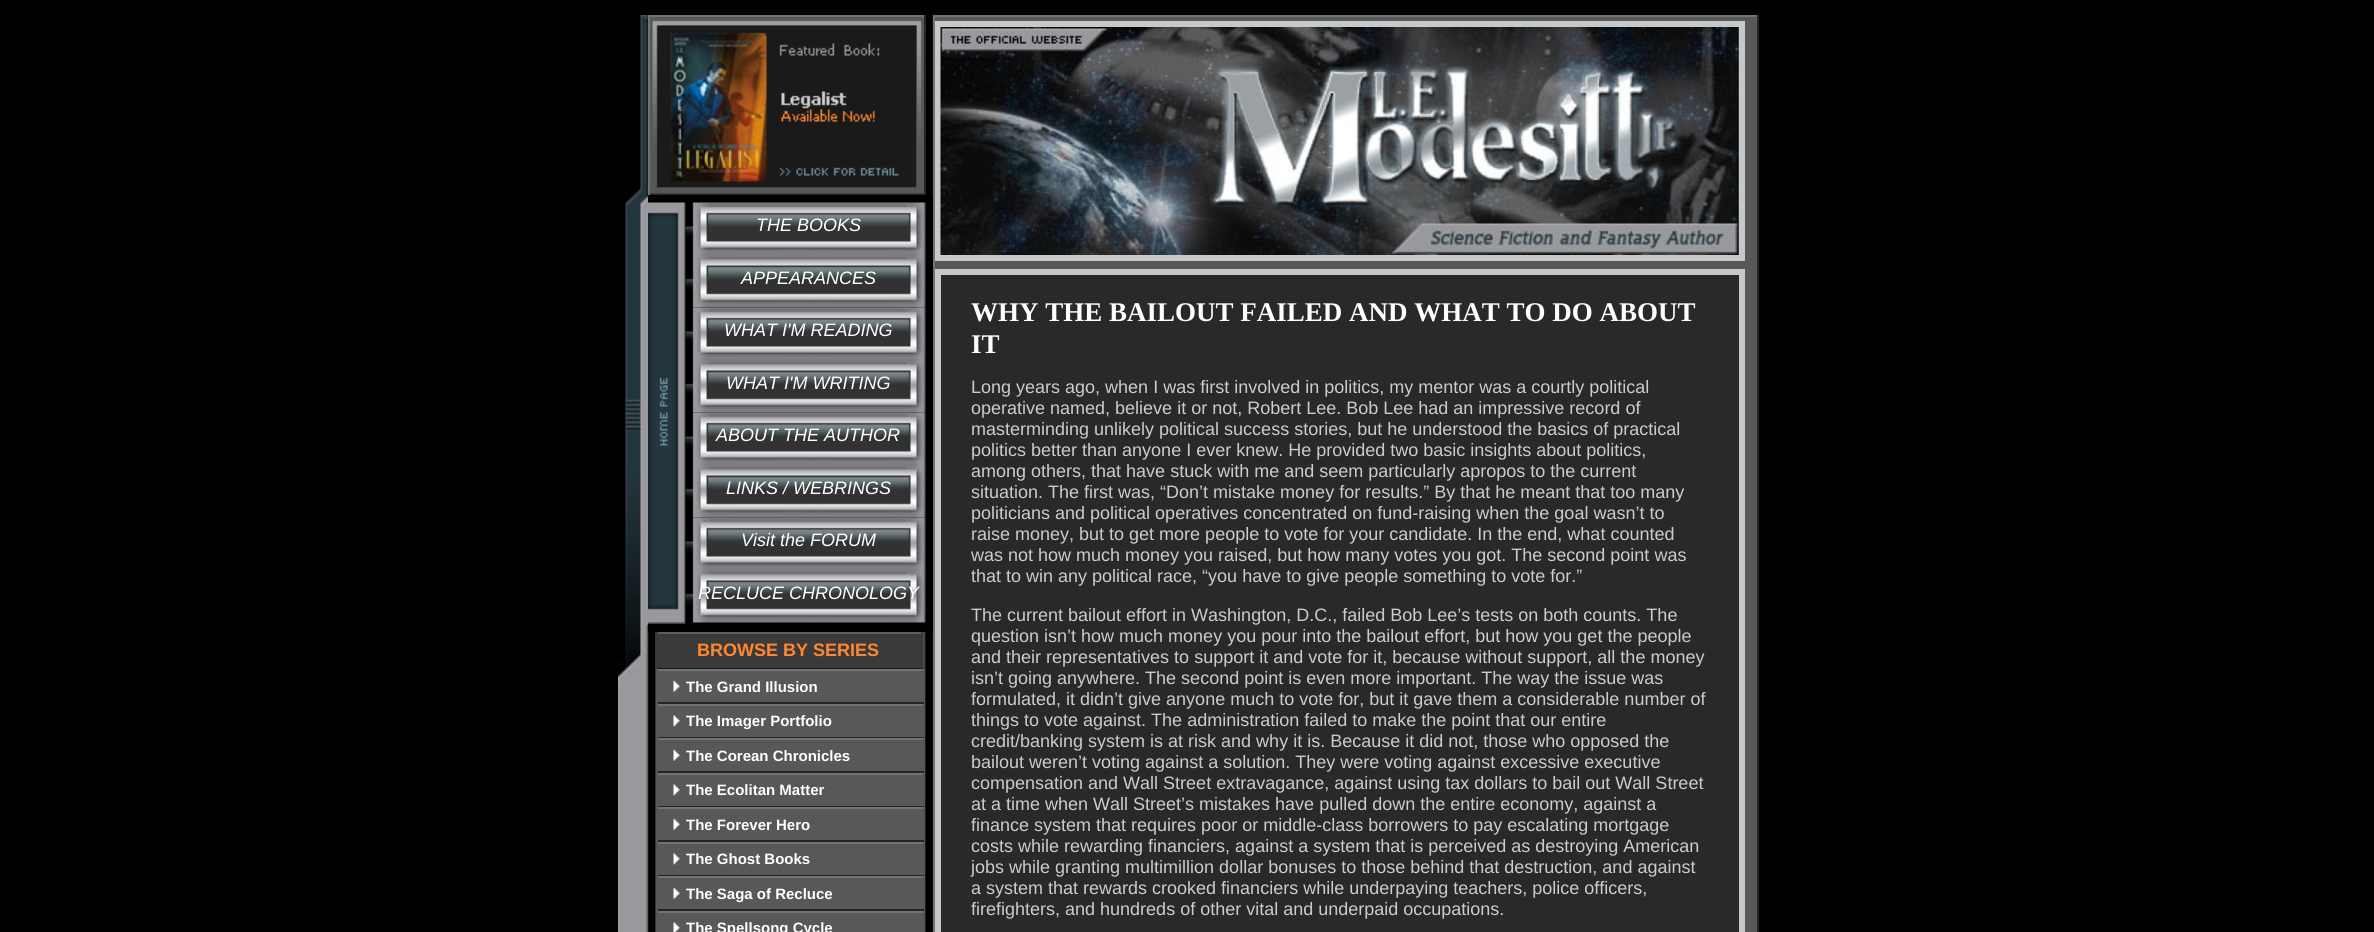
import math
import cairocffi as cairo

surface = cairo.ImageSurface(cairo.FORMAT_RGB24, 2374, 932)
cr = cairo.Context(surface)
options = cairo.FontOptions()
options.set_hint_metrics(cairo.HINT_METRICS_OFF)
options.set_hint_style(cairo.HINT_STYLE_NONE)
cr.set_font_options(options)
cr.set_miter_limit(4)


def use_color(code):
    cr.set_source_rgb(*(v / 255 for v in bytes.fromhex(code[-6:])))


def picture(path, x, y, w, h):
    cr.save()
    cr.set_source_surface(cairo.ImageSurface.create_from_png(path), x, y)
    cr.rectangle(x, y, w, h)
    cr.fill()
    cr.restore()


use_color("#000000")
cr.paint()
picture("img1.png", 648, 15, 285, 917)
picture("img2.png", 618, 15, 30, 917)
use_color("#242424")
cr.rectangle(650, 193, 274, 1)
cr.fill()
picture("img3.png", 650, 17, 274, 177)
use_color("#737373")
cr.rectangle(648, 15, 278, 2)
cr.fill()
use_color("#252525")
cr.rectangle(924, 15, 2, 180)
cr.fill()
cr.rectangle(648, 194, 278, 1)
cr.fill()
use_color("#737373")
cr.rectangle(648, 15, 2, 180)
cr.fill()
use_color("#585858")
cr.rectangle(659, 26, 258, 162)
cr.fill()
picture("img4.png", 658, 25, 259, 163)
use_color("#000000")
cr.rectangle(648, 195, 285, 437)
cr.fill()
picture("img5.png", 648, 202, 38, 422)
picture("img6.png", 685, 202, 241, 53)
cr.select_font_face("Liberation Sans", cairo.FONT_SLANT_ITALIC)
cr.set_font_size(18)
use_color("#ffffff")
cr.move_to(756, 231)
cr.show_text("THE BOOKS")
picture("img7.png", 685, 255, 241, 53)
cr.move_to(741, 284)
cr.show_text("APPEARANCES")
picture("img8.png", 685, 307, 241, 53)
cr.move_to(724, 336)
cr.show_text("WHAT I'M READING")
picture("img7.png", 685, 360, 241, 53)
cr.move_to(726, 389)
cr.show_text("WHAT I'M WRITING")
picture("img8.png", 685, 412, 241, 53)
cr.move_to(716, 441)
cr.show_text("ABOUT THE AUTHOR")
picture("img7.png", 685, 465, 241, 53)
cr.move_to(726, 494)
cr.show_text("LINKS / WEBRINGS")
picture("img8.png", 685, 517, 241, 53)
cr.move_to(741, 546)
cr.show_text("Visit the FORUM")
picture("img9.png", 685, 570, 241, 53)
cr.move_to(698, 599)
cr.show_text("RECLUCE CHRONOLOGY")
use_color("#3a3a3a")
cr.rectangle(658, 634, 263, 34)
cr.fill()
use_color("#5f5f5f")
cr.rectangle(656, 632, 267, 2)
cr.fill()
use_color("#3a3a3a")
cr.rectangle(921, 632, 2, 37)
cr.fill()
use_color("#181818")
cr.rectangle(656, 668, 267, 1)
cr.fill()
use_color("#3a3a3a")
cr.rectangle(656, 632, 2, 37)
cr.fill()
cr.select_font_face("Liberation Sans", cairo.FONT_SLANT_NORMAL, cairo.FONT_WEIGHT_BOLD)
use_color("#ff872f")
cr.move_to(697, 656)
cr.show_text("BROWSE BY SERIES")
use_color("#737373")
cr.rectangle(656, 669, 268, 2)
cr.fill()
use_color("#585858")
cr.rectangle(923, 669, 2, 35)
cr.fill()
use_color("#252525")
cr.rectangle(656, 702, 268, 2)
cr.fill()
use_color("#585858")
cr.rectangle(656, 669, 2, 35)
cr.fill()
picture("img10.png", 673, 680, 7, 12)
cr.set_font_size(15)
use_color("#ffffff")
cr.move_to(686, 692)
cr.show_text("The Grand Illusion")
use_color("#737373")
cr.rectangle(656, 704, 268, 2)
cr.fill()
use_color("#585858")
cr.rectangle(923, 704, 2, 34)
cr.fill()
use_color("#252525")
cr.rectangle(656, 737, 268, 1)
cr.fill()
use_color("#585858")
cr.rectangle(656, 704, 2, 34)
cr.fill()
picture("img11.png", 673, 715, 7, 12)
use_color("#ffffff")
cr.move_to(686, 726)
cr.show_text("The Imager Portfolio")
use_color("#737373")
cr.rectangle(656, 738, 268, 2)
cr.fill()
use_color("#585858")
cr.rectangle(923, 738, 2, 35)
cr.fill()
use_color("#252525")
cr.rectangle(656, 771, 268, 2)
cr.fill()
use_color("#585858")
cr.rectangle(656, 738, 2, 35)
cr.fill()
picture("img10.png", 673, 749, 7, 12)
use_color("#ffffff")
cr.move_to(686, 761)
cr.show_text("The Corean Chronicles")
use_color("#737373")
cr.rectangle(656, 773, 268, 2)
cr.fill()
use_color("#585858")
cr.rectangle(923, 773, 2, 34)
cr.fill()
use_color("#252525")
cr.rectangle(656, 806, 268, 1)
cr.fill()
use_color("#585858")
cr.rectangle(656, 773, 2, 34)
cr.fill()
picture("img11.png", 673, 784, 7, 12)
use_color("#ffffff")
cr.move_to(686, 795)
cr.show_text("The Ecolitan Matter")
use_color("#737373")
cr.rectangle(656, 807, 268, 2)
cr.fill()
use_color("#585858")
cr.rectangle(923, 807, 2, 35)
cr.fill()
use_color("#252525")
cr.rectangle(656, 840, 268, 2)
cr.fill()
use_color("#585858")
cr.rectangle(656, 807, 2, 35)
cr.fill()
picture("img10.png", 673, 818, 7, 12)
use_color("#ffffff")
cr.move_to(686, 830)
cr.show_text("The Forever Hero")
use_color("#737373")
cr.rectangle(656, 842, 268, 2)
cr.fill()
use_color("#585858")
cr.rectangle(923, 842, 2, 34)
cr.fill()
use_color("#252525")
cr.rectangle(656, 875, 268, 1)
cr.fill()
use_color("#585858")
cr.rectangle(656, 842, 2, 34)
cr.fill()
picture("img11.png", 673, 853, 7, 12)
use_color("#ffffff")
cr.move_to(686, 864)
cr.show_text("The Ghost Books")
use_color("#737373")
cr.rectangle(656, 876, 268, 2)
cr.fill()
use_color("#585858")
cr.rectangle(923, 876, 2, 35)
cr.fill()
use_color("#252525")
cr.rectangle(656, 909, 268, 2)
cr.fill()
use_color("#585858")
cr.rectangle(656, 876, 2, 35)
cr.fill()
picture("img10.png", 673, 887, 7, 12)
use_color("#ffffff")
cr.move_to(686, 899)
cr.show_text("The Saga of Recluce")
use_color("#737373")
cr.rectangle(656, 911, 268, 2)
cr.fill()
use_color("#585858")
cr.rectangle(923, 911, 2, 21)
cr.fill()
cr.rectangle(656, 911, 2, 21)
cr.fill()
picture("img12.png", 673, 922, 7, 10)
use_color("#ffffff")
cr.move_to(686, 933)
cr.show_text("The Spellsong Cycle")
use_color("#585858")
cr.rectangle(935, 17, 822, 915)
cr.fill()
use_color("#737373")
cr.rectangle(933, 15, 825, 2)
cr.fill()
use_color("#252525")
cr.rectangle(1757, 15, 2, 917)
cr.fill()
use_color("#737373")
cr.rectangle(933, 15, 2, 917)
cr.fill()
cr.rectangle(938, 24, 804, 234)
use_color("#c6c9ca")
cr.set_line_width(6)
cr.stroke()
picture("img13.png", 940, 27, 799, 228)
use_color("#292929")
cr.rectangle(938, 272, 804, 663)
cr.fill_preserve()
use_color("#c6c9ca")
cr.stroke()
cr.select_font_face("Liberation Serif", cairo.FONT_SLANT_NORMAL, cairo.FONT_WEIGHT_BOLD)
cr.set_font_size(27)
use_color("#ffffff")
cr.move_to(971, 321)
cr.show_text("WHY THE BAILOUT FAILED AND WHAT TO DO ABOUT")
cr.move_to(971, 353)
cr.show_text("IT")
cr.select_font_face("Liberation Sans")
cr.set_font_size(18)
use_color("#cccccc")
cr.move_to(971, 393)
cr.show_text("Long years ago, when I was first involved in politics, my mentor was a courtly political")
cr.move_to(971, 414)
cr.show_text("operative named, believe it or not, Robert Lee. Bob Lee had an impressive record of")
cr.move_to(971, 435)
cr.show_text("masterminding unlikely political success stories, but he understood the basics of practical")
cr.move_to(971, 456)
cr.show_text("politics better than anyone I ever knew. He provided two basic insights about politics,")
cr.move_to(971, 477)
cr.show_text("among others, that have stuck with me and seem particularly apropos to the current")
cr.move_to(971, 498)
cr.show_text("situation. The first was, “Don’t mistake money for results.” By that he meant that too many")
cr.move_to(971, 519)
cr.show_text("politicians and political operatives concentrated on fund-raising when the goal wasn’t to")
cr.move_to(971, 540)
cr.show_text("raise money, but to get more people to vote for your candidate. In the end, what counted")
cr.move_to(971, 561)
cr.show_text("was not how much money you raised, but how many votes you got. The second point was")
cr.move_to(971, 582)
cr.show_text("that to win any political race, “you have to give people something to vote for.”")
cr.move_to(971, 621)
cr.show_text("The current bailout effort in Washington, D.C., failed Bob Lee’s tests on both counts. The")
cr.move_to(971, 642)
cr.show_text("question isn’t how much money you pour into the bailout effort, but how you get the people")
cr.move_to(971, 663)
cr.show_text("and their representatives to support it and vote for it, because without support, all the money")
cr.move_to(971, 684)
cr.show_text("isn’t going anywhere. The second point is even more important. The way the issue was")
cr.move_to(971, 705)
cr.show_text("formulated, it didn’t give anyone much to vote for, but it gave them a considerable number of")
cr.move_to(971, 726)
cr.show_text("things to vote against. The administration failed to make the point that our entire")
cr.move_to(971, 747)
cr.show_text("credit/banking system is at risk and why it is. Because it did not, those who opposed the")
cr.move_to(971, 768)
cr.show_text("bailout weren’t voting against a solution. They were voting against excessive executive")
cr.move_to(971, 789)
cr.show_text("compensation and Wall Street extravagance, against using tax dollars to bail out Wall Street")
cr.move_to(971, 810)
cr.show_text("at a time when Wall Street’s mistakes have pulled down the entire economy, against a")
cr.move_to(971, 831)
cr.show_text("finance system that requires poor or middle-class borrowers to pay escalating mortgage")
cr.move_to(971, 852)
cr.show_text("costs while rewarding financiers, against a system that is perceived as destroying American")
cr.move_to(971, 873)
cr.show_text("jobs while granting multimillion dollar bonuses to those behind that destruction, and against")
cr.move_to(971, 894)
cr.show_text("a system that rewards crooked financiers while underpaying teachers, police officers,")
cr.move_to(971, 915)
cr.show_text("firefighters, and hundreds of other vital and underpaid occupations.")
surface.write_to_png("result.png")
